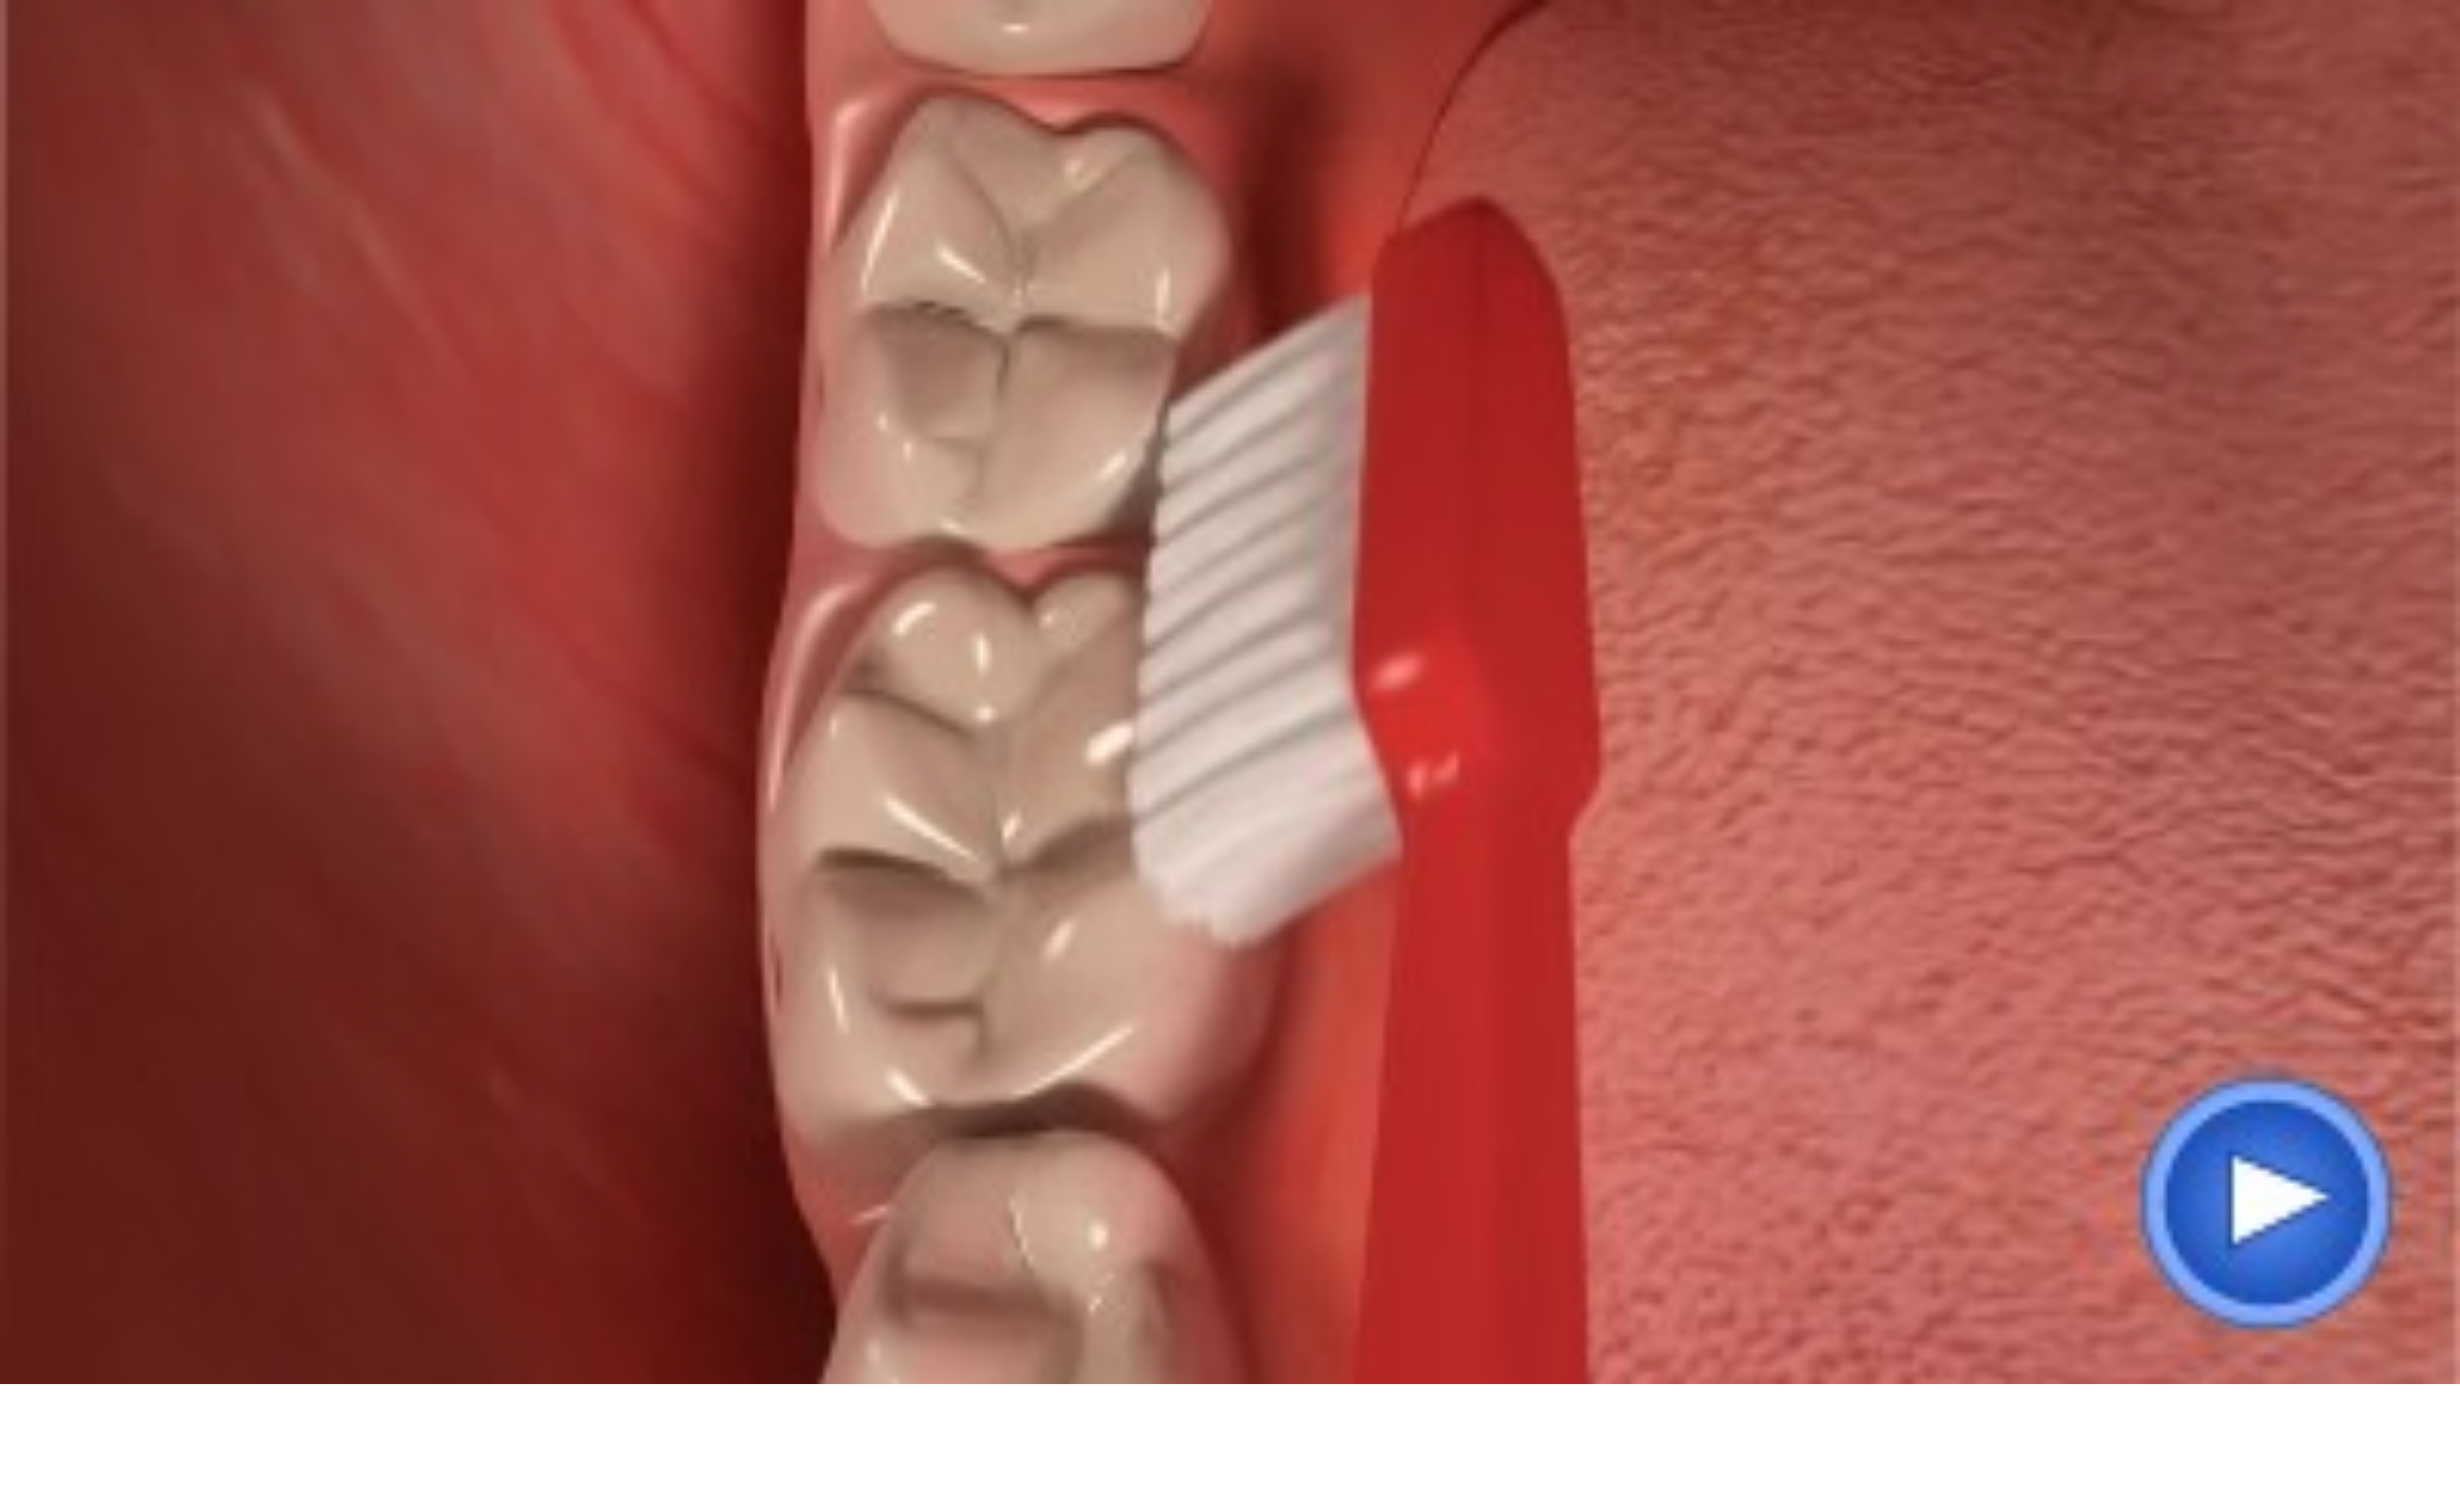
import math
import cairocffi as cairo

surface = cairo.ImageSurface(cairo.FORMAT_RGB24, 2460, 1498)
cr = cairo.Context(surface)
options = cairo.FontOptions()
options.set_hint_metrics(cairo.HINT_METRICS_OFF)
options.set_hint_style(cairo.HINT_STYLE_NONE)
cr.set_font_options(options)
cr.set_miter_limit(4)


def use_color(code):
    cr.set_source_rgb(*(v / 255 for v in bytes.fromhex(code[-6:])))


def picture(path, x, y, w, h):
    cr.save()
    cr.set_source_surface(cairo.ImageSurface.create_from_png(path), x, y)
    cr.rectangle(x, y, w, h)
    cr.fill()
    cr.restore()


use_color("#ffffff")
cr.paint()
picture("img1.png", 0, 0, 2460, 1385)
surface.write_to_png("result.png")
